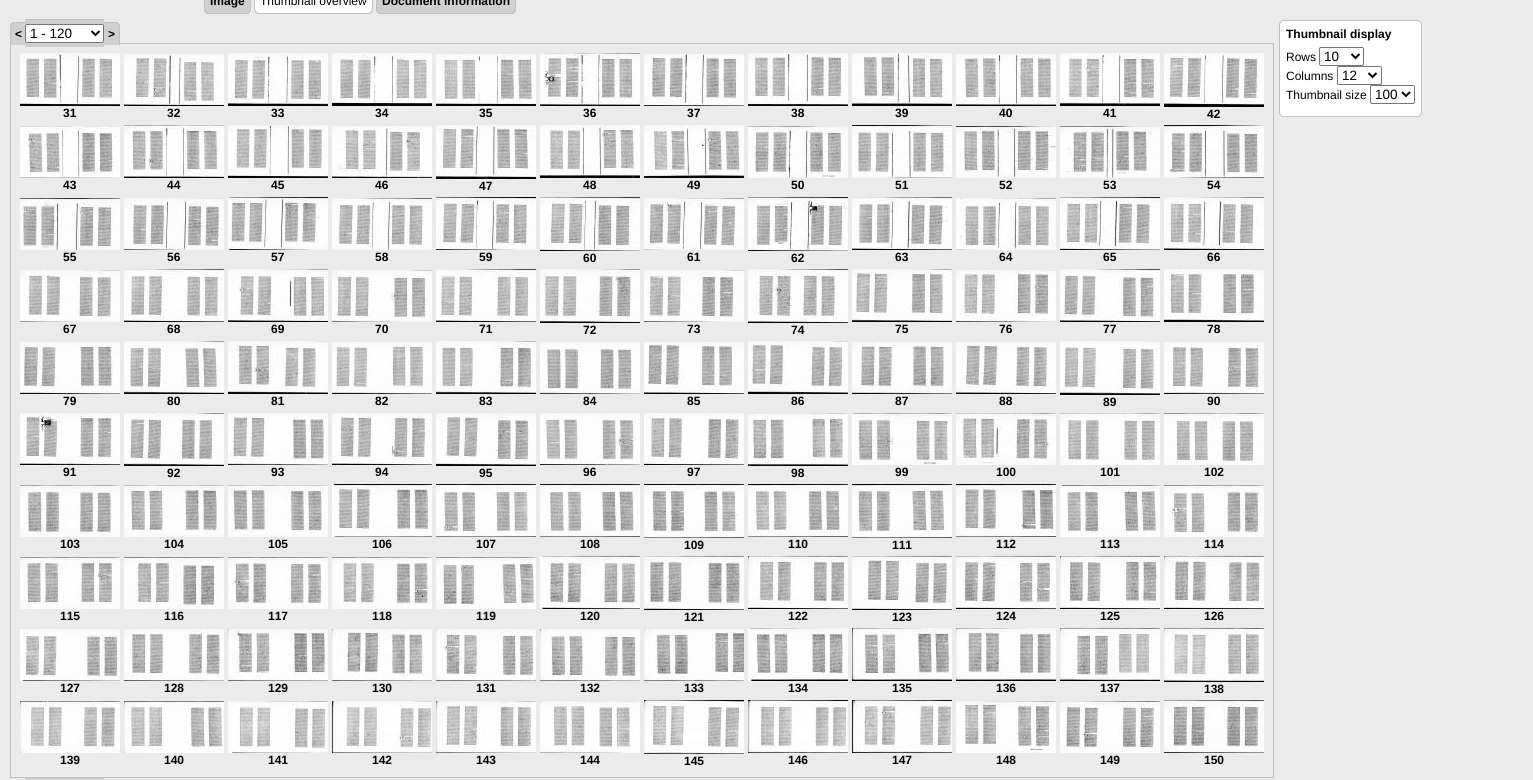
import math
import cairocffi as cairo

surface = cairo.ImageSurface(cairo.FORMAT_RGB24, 1533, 780)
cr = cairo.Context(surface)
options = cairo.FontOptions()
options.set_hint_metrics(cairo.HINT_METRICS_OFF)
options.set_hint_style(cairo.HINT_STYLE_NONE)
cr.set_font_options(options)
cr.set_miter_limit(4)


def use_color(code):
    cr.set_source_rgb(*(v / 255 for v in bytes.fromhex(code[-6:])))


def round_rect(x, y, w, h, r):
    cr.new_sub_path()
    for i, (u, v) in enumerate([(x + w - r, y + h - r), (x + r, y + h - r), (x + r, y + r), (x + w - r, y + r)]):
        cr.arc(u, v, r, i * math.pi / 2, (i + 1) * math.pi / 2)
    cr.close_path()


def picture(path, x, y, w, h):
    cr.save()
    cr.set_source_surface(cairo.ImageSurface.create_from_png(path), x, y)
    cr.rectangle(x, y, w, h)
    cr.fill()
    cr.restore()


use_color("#ebebeb")
cr.paint()
use_color("#d0d0d0")
cr.new_path()
cr.move_to(204, -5)
cr.line_to(251, -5)
cr.line_to(251, 9)
cr.curve_to(251, 12, 249, 14, 246, 14)
cr.line_to(209, 14)
cr.curve_to(206, 14, 204, 12, 204, 9)
cr.close_path()
cr.fill()
use_color("#c0c0c0")
cr.set_fill_rule(cairo.FILL_RULE_EVEN_ODD)
cr.new_path()
cr.move_to(204, -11)
cr.line_to(251, -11)
cr.line_to(251, 9)
cr.curve_to(251, 12, 249, 14, 246, 14)
cr.line_to(209, 14)
cr.curve_to(206, 14, 204, 12, 204, 9)
cr.close_path()
cr.move_to(205, -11)
cr.line_to(250, -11)
cr.line_to(250, 9)
cr.curve_to(250, 11, 248, 13, 246, 13)
cr.line_to(209, 13)
cr.curve_to(207, 13, 205, 11, 205, 9)
cr.close_path()
cr.fill()
cr.select_font_face("Liberation Sans", cairo.FONT_SLANT_NORMAL, cairo.FONT_WEIGHT_BOLD)
cr.set_font_size(12)
use_color("#000000")
cr.move_to(210, 5)
cr.show_text("Image")
use_color("#ffffff")
cr.new_path()
cr.move_to(254, -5)
cr.line_to(373, -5)
cr.line_to(373, 9)
cr.curve_to(373, 12, 371, 14, 368, 14)
cr.line_to(259, 14)
cr.curve_to(256, 14, 254, 12, 254, 9)
cr.close_path()
cr.fill()
use_color("#c0c0c0")
cr.new_path()
cr.move_to(254, -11)
cr.line_to(373, -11)
cr.line_to(373, 9)
cr.curve_to(373, 12, 371, 14, 368, 14)
cr.line_to(259, 14)
cr.curve_to(256, 14, 254, 12, 254, 9)
cr.close_path()
cr.move_to(255, -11)
cr.line_to(372, -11)
cr.line_to(372, 9)
cr.curve_to(372, 11, 370, 13, 368, 13)
cr.line_to(259, 13)
cr.curve_to(257, 13, 255, 11, 255, 9)
cr.close_path()
cr.fill()
cr.select_font_face("Liberation Sans")
use_color("#000000")
cr.move_to(260, 5)
cr.show_text("Thumbnail overview")
use_color("#d0d0d0")
cr.new_path()
cr.move_to(376, -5)
cr.line_to(516, -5)
cr.line_to(516, 9)
cr.curve_to(516, 12, 514, 14, 511, 14)
cr.line_to(381, 14)
cr.curve_to(378, 14, 376, 12, 376, 9)
cr.close_path()
cr.fill()
use_color("#c0c0c0")
cr.new_path()
cr.move_to(376, -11)
cr.line_to(516, -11)
cr.line_to(516, 9)
cr.curve_to(516, 12, 514, 14, 511, 14)
cr.line_to(381, 14)
cr.curve_to(378, 14, 376, 12, 376, 9)
cr.close_path()
cr.move_to(377, -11)
cr.line_to(515, -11)
cr.line_to(515, 9)
cr.curve_to(515, 11, 513, 13, 511, 13)
cr.line_to(381, 13)
cr.curve_to(379, 13, 377, 11, 377, 9)
cr.close_path()
cr.fill()
cr.select_font_face("Liberation Sans", cairo.FONT_SLANT_NORMAL, cairo.FONT_WEIGHT_BOLD)
use_color("#000000")
cr.move_to(382, 5)
cr.show_text("Document information")
cr.rectangle(10.5, 43.5, 1263, 734)
use_color("#c0c0c0")
cr.set_line_width(1)
cr.stroke()
use_color("#d0d0d0")
cr.new_path()
cr.move_to(15, 22)
cr.line_to(22, 22)
cr.line_to(22, 45)
cr.line_to(10, 45)
cr.line_to(10, 27)
cr.curve_to(10, 24, 12, 22, 15, 22)
cr.close_path()
cr.fill()
use_color("#c0c0c0")
cr.new_path()
cr.move_to(15, 22)
cr.line_to(22, 22)
cr.line_to(22, 45)
cr.line_to(10, 45)
cr.line_to(10, 27)
cr.curve_to(10, 24, 12, 22, 15, 22)
cr.close_path()
cr.move_to(15, 23)
cr.line_to(22, 23)
cr.line_to(22, 45)
cr.line_to(11, 45)
cr.line_to(11, 27)
cr.curve_to(11, 25, 13, 23, 15, 23)
cr.close_path()
cr.fill()
use_color("#d0d0d0")
cr.rectangle(22, 22, 3, 23)
cr.fill()
use_color("#c0c0c0")
cr.rectangle(22, 22, 3, 1)
cr.fill()
use_color("#d0d0d0")
cr.rectangle(25, 20, 79, 27)
cr.fill()
use_color("#c0c0c0")
cr.rectangle(25, 19, 79, 1)
cr.fill()
use_color("#d0d0d0")
cr.rectangle(104, 22, 4, 23)
cr.fill()
use_color("#c0c0c0")
cr.rectangle(104, 22, 4, 1)
cr.fill()
use_color("#d0d0d0")
cr.new_path()
cr.move_to(108, 22)
cr.line_to(115, 22)
cr.curve_to(118, 22, 120, 24, 120, 27)
cr.line_to(120, 45)
cr.line_to(108, 45)
cr.close_path()
cr.fill()
use_color("#c0c0c0")
cr.new_path()
cr.move_to(108, 22)
cr.line_to(115, 22)
cr.curve_to(118, 22, 120, 24, 120, 27)
cr.line_to(120, 45)
cr.line_to(108, 45)
cr.close_path()
cr.move_to(108, 23)
cr.line_to(115, 23)
cr.curve_to(117, 23, 119, 25, 119, 27)
cr.line_to(119, 45)
cr.line_to(108, 45)
cr.close_path()
cr.fill()
use_color("#000000")
cr.move_to(15, 38)
cr.show_text("<")
use_color("#ffffff")
round_rect(25.5, 24.5, 78, 18, 1.5)
cr.fill_preserve()
use_color("#767676")
cr.stroke()
cr.new_path()
cr.move_to(91.5, 31)
cr.line_to(95.5, 35)
cr.line_to(99.5, 31)
use_color("#000000")
cr.set_line_width(2)
cr.stroke()
cr.select_font_face("Liberation Sans")
cr.set_font_size(13.5)
cr.move_to(30, 38)
cr.show_text("1 - 120")
cr.select_font_face("Liberation Sans", cairo.FONT_SLANT_NORMAL, cairo.FONT_WEIGHT_BOLD)
cr.set_font_size(12)
cr.move_to(108, 38)
cr.show_text(">")
picture("img1.png", 20, 53, 100, 53)
cr.move_to(63, 117)
cr.show_text("31")
picture("img2.png", 124, 54, 100, 52)
cr.move_to(167, 117)
cr.show_text("32")
picture("img3.png", 228, 53, 100, 53)
cr.move_to(271, 117)
cr.show_text("33")
picture("img4.png", 332, 53, 100, 53)
cr.move_to(375, 117)
cr.show_text("34")
picture("img5.png", 436, 54, 100, 52)
cr.move_to(479, 117)
cr.show_text("35")
picture("img6.png", 540, 53, 100, 53)
cr.move_to(583, 117)
cr.show_text("36")
picture("img7.png", 644, 54, 100, 52)
cr.move_to(687, 117)
cr.show_text("37")
picture("img8.png", 748, 53, 100, 53)
cr.move_to(791, 117)
cr.show_text("38")
picture("img9.png", 852, 53, 100, 53)
cr.move_to(895, 117)
cr.show_text("39")
picture("img10.png", 956, 54, 100, 52)
cr.move_to(999, 117)
cr.show_text("40")
picture("img11.png", 1060, 53, 100, 53)
cr.move_to(1103, 117)
cr.show_text("41")
picture("img12.png", 1164, 53, 100, 54)
cr.move_to(1207, 118)
cr.show_text("42")
picture("img13.png", 20, 126, 100, 52)
cr.move_to(63, 189)
cr.show_text("43")
picture("img14.png", 124, 125, 100, 53)
cr.move_to(167, 189)
cr.show_text("44")
picture("img15.png", 228, 125, 100, 53)
cr.move_to(271, 189)
cr.show_text("45")
picture("img16.png", 332, 126, 100, 52)
cr.move_to(375, 189)
cr.show_text("46")
picture("img17.png", 436, 125, 100, 54)
cr.move_to(479, 190)
cr.show_text("47")
picture("img18.png", 540, 125, 100, 53)
cr.move_to(583, 189)
cr.show_text("48")
picture("img19.png", 644, 125, 100, 53)
cr.move_to(687, 189)
cr.show_text("49")
picture("img20.png", 748, 126, 100, 52)
cr.move_to(791, 189)
cr.show_text("50")
picture("img21.png", 852, 125, 100, 53)
cr.move_to(895, 189)
cr.show_text("51")
picture("img22.png", 956, 126, 100, 52)
cr.move_to(999, 189)
cr.show_text("52")
picture("img23.png", 1060, 126, 100, 52)
cr.move_to(1103, 189)
cr.show_text("53")
picture("img24.png", 1164, 125, 100, 53)
cr.move_to(1207, 189)
cr.show_text("54")
picture("img25.png", 20, 198, 100, 52)
cr.move_to(63, 261)
cr.show_text("55")
picture("img26.png", 124, 198, 100, 52)
cr.move_to(167, 261)
cr.show_text("56")
picture("img27.png", 228, 197, 100, 53)
cr.move_to(271, 261)
cr.show_text("57")
picture("img28.png", 332, 198, 100, 52)
cr.move_to(375, 261)
cr.show_text("58")
picture("img29.png", 436, 197, 100, 53)
cr.move_to(479, 261)
cr.show_text("59")
picture("img30.png", 540, 197, 100, 54)
cr.move_to(583, 262)
cr.show_text("60")
picture("img31.png", 644, 198, 100, 52)
cr.move_to(687, 261)
cr.show_text("61")
picture("img32.png", 748, 197, 100, 54)
cr.move_to(791, 262)
cr.show_text("62")
picture("img33.png", 852, 197, 100, 53)
cr.move_to(895, 261)
cr.show_text("63")
picture("img34.png", 956, 198, 100, 52)
cr.move_to(999, 261)
cr.show_text("64")
picture("img35.png", 1060, 197, 100, 53)
cr.move_to(1103, 261)
cr.show_text("65")
picture("img36.png", 1164, 197, 100, 53)
cr.move_to(1207, 261)
cr.show_text("66")
picture("img37.png", 20, 270, 100, 52)
cr.move_to(63, 333)
cr.show_text("67")
picture("img38.png", 124, 269, 100, 53)
cr.move_to(167, 333)
cr.show_text("68")
picture("img39.png", 228, 269, 100, 53)
cr.move_to(271, 333)
cr.show_text("69")
picture("img40.png", 332, 270, 100, 52)
cr.move_to(375, 333)
cr.show_text("70")
picture("img41.png", 436, 269, 100, 53)
cr.move_to(479, 333)
cr.show_text("71")
picture("img42.png", 540, 269, 100, 54)
cr.move_to(583, 334)
cr.show_text("72")
picture("img43.png", 644, 270, 100, 52)
cr.move_to(687, 333)
cr.show_text("73")
picture("img44.png", 748, 269, 100, 54)
cr.move_to(791, 334)
cr.show_text("74")
picture("img45.png", 852, 269, 100, 53)
cr.move_to(895, 333)
cr.show_text("75")
picture("img46.png", 956, 270, 100, 52)
cr.move_to(999, 333)
cr.show_text("76")
picture("img47.png", 1060, 269, 100, 53)
cr.move_to(1103, 333)
cr.show_text("77")
picture("img48.png", 1164, 269, 100, 53)
cr.move_to(1207, 333)
cr.show_text("78")
picture("img49.png", 20, 342, 100, 52)
cr.move_to(63, 405)
cr.show_text("79")
picture("img50.png", 124, 341, 100, 53)
cr.move_to(167, 405)
cr.show_text("80")
picture("img51.png", 228, 341, 100, 53)
cr.move_to(271, 405)
cr.show_text("81")
picture("img52.png", 332, 342, 100, 52)
cr.move_to(375, 405)
cr.show_text("82")
picture("img53.png", 436, 341, 100, 53)
cr.move_to(479, 405)
cr.show_text("83")
picture("img54.png", 540, 342, 100, 52)
cr.move_to(583, 405)
cr.show_text("84")
picture("img55.png", 644, 342, 100, 52)
cr.move_to(687, 405)
cr.show_text("85")
picture("img56.png", 748, 341, 100, 53)
cr.move_to(791, 405)
cr.show_text("86")
picture("img57.png", 852, 342, 100, 52)
cr.move_to(895, 405)
cr.show_text("87")
picture("img58.png", 956, 342, 100, 52)
cr.move_to(999, 405)
cr.show_text("88")
picture("img59.png", 1060, 341, 100, 54)
cr.move_to(1103, 406)
cr.show_text("89")
picture("img60.png", 1164, 342, 100, 52)
cr.move_to(1207, 405)
cr.show_text("90")
picture("img61.png", 20, 413, 100, 52)
cr.move_to(63, 476)
cr.show_text("91")
picture("img62.png", 124, 413, 100, 53)
cr.move_to(167, 477)
cr.show_text("92")
picture("img63.png", 228, 413, 100, 52)
cr.move_to(271, 476)
cr.show_text("93")
picture("img64.png", 332, 413, 100, 52)
cr.move_to(375, 476)
cr.show_text("94")
picture("img65.png", 436, 413, 100, 53)
cr.move_to(479, 477)
cr.show_text("95")
picture("img66.png", 540, 413, 100, 52)
cr.move_to(583, 476)
cr.show_text("96")
picture("img67.png", 644, 413, 100, 52)
cr.move_to(687, 476)
cr.show_text("97")
picture("img68.png", 748, 413, 100, 53)
cr.move_to(791, 477)
cr.show_text("98")
picture("img69.png", 852, 413, 100, 52)
cr.move_to(895, 476)
cr.show_text("99")
picture("img70.png", 956, 413, 100, 52)
cr.move_to(996, 476)
cr.show_text("100")
picture("img71.png", 1060, 413, 100, 52)
cr.move_to(1100, 476)
cr.show_text("101")
picture("img72.png", 1164, 413, 100, 52)
cr.move_to(1204, 476)
cr.show_text("102")
picture("img73.png", 20, 485, 100, 52)
cr.move_to(60, 548)
cr.show_text("103")
picture("img74.png", 124, 485, 100, 52)
cr.move_to(164, 548)
cr.show_text("104")
picture("img75.png", 228, 485, 100, 52)
cr.move_to(268, 548)
cr.show_text("105")
picture("img76.png", 332, 484, 100, 53)
cr.move_to(372, 548)
cr.show_text("106")
picture("img77.png", 436, 484, 100, 53)
cr.move_to(476, 548)
cr.show_text("107")
picture("img78.png", 540, 484, 100, 53)
cr.move_to(580, 548)
cr.show_text("108")
picture("img79.png", 644, 484, 100, 54)
cr.move_to(684, 549)
cr.show_text("109")
picture("img80.png", 748, 484, 100, 53)
cr.move_to(788, 548)
cr.show_text("110")
picture("img81.png", 852, 484, 100, 54)
cr.move_to(892, 549)
cr.show_text("111")
picture("img82.png", 956, 484, 100, 53)
cr.move_to(996, 548)
cr.show_text("112")
picture("img83.png", 1060, 485, 100, 52)
cr.move_to(1100, 548)
cr.show_text("113")
picture("img84.png", 1164, 485, 100, 52)
cr.move_to(1204, 548)
cr.show_text("114")
picture("img85.png", 20, 557, 100, 52)
cr.move_to(60, 620)
cr.show_text("115")
picture("img86.png", 124, 557, 100, 52)
cr.move_to(164, 620)
cr.show_text("116")
picture("img87.png", 228, 557, 100, 52)
cr.move_to(268, 620)
cr.show_text("117")
picture("img88.png", 332, 557, 100, 52)
cr.move_to(372, 620)
cr.show_text("118")
picture("img89.png", 436, 557, 100, 52)
cr.move_to(476, 620)
cr.show_text("119")
picture("img90.png", 540, 556, 100, 53)
cr.move_to(580, 620)
cr.show_text("120")
picture("img91.png", 644, 556, 100, 54)
cr.move_to(684, 621)
cr.show_text("121")
picture("img92.png", 748, 556, 100, 53)
cr.move_to(788, 620)
cr.show_text("122")
picture("img93.png", 852, 556, 100, 54)
cr.move_to(892, 621)
cr.show_text("123")
picture("img94.png", 956, 556, 100, 53)
cr.move_to(996, 620)
cr.show_text("124")
picture("img95.png", 1060, 556, 100, 53)
cr.move_to(1100, 620)
cr.show_text("125")
picture("img96.png", 1164, 556, 100, 53)
cr.move_to(1204, 620)
cr.show_text("126")
picture("img97.png", 20, 629, 100, 52)
cr.move_to(60, 692)
cr.show_text("127")
picture("img98.png", 124, 629, 100, 52)
cr.move_to(164, 692)
cr.show_text("128")
picture("img99.png", 228, 629, 100, 52)
cr.move_to(268, 692)
cr.show_text("129")
picture("img100.png", 332, 629, 100, 52)
cr.move_to(372, 692)
cr.show_text("130")
picture("img101.png", 436, 629, 100, 52)
cr.move_to(476, 692)
cr.show_text("131")
picture("img102.png", 540, 629, 100, 52)
cr.move_to(580, 692)
cr.show_text("132")
picture("img103.png", 644, 629, 100, 52)
cr.move_to(684, 692)
cr.show_text("133")
picture("img104.png", 748, 628, 100, 53)
cr.move_to(788, 692)
cr.show_text("134")
picture("img105.png", 852, 628, 100, 53)
cr.move_to(892, 692)
cr.show_text("135")
picture("img106.png", 956, 628, 100, 53)
cr.move_to(996, 692)
cr.show_text("136")
picture("img107.png", 1060, 628, 100, 53)
cr.move_to(1100, 692)
cr.show_text("137")
picture("img108.png", 1164, 628, 100, 54)
cr.move_to(1204, 693)
cr.show_text("138")
picture("img109.png", 20, 701, 100, 52)
cr.move_to(60, 764)
cr.show_text("139")
picture("img110.png", 124, 701, 100, 52)
cr.move_to(164, 764)
cr.show_text("140")
picture("img111.png", 228, 701, 100, 52)
cr.move_to(268, 764)
cr.show_text("141")
picture("img112.png", 332, 701, 100, 52)
cr.move_to(372, 764)
cr.show_text("142")
picture("img113.png", 436, 701, 100, 52)
cr.move_to(476, 764)
cr.show_text("143")
picture("img114.png", 540, 701, 100, 52)
cr.move_to(580, 764)
cr.show_text("144")
picture("img115.png", 644, 700, 100, 54)
cr.move_to(684, 765)
cr.show_text("145")
picture("img116.png", 748, 700, 100, 53)
cr.move_to(788, 764)
cr.show_text("146")
picture("img117.png", 852, 700, 100, 53)
cr.move_to(892, 764)
cr.show_text("147")
picture("img118.png", 956, 701, 100, 52)
cr.move_to(996, 764)
cr.show_text("148")
picture("img119.png", 1060, 701, 100, 52)
cr.move_to(1100, 764)
cr.show_text("149")
picture("img120.png", 1164, 700, 100, 53)
cr.move_to(1204, 764)
cr.show_text("150")
use_color("#d0d0d0")
cr.rectangle(25, 778, 79, 2)
cr.fill()
use_color("#ffffff")
round_rect(1279.5, 20.5, 142, 96, 4.5)
cr.fill_preserve()
use_color("#c0c0c0")
cr.set_line_width(1)
cr.stroke()
use_color("#000000")
cr.move_to(1286, 38)
cr.show_text("Thumbnail display")
cr.select_font_face("Liberation Sans")
cr.move_to(1286, 61)
cr.show_text("Rows")
round_rect(1319.5, 47.5, 44, 18, 1.5)
use_color("#767676")
cr.stroke()
cr.new_path()
cr.move_to(1351.5, 54)
cr.line_to(1355.5, 58)
cr.line_to(1359.5, 54)
use_color("#000000")
cr.set_line_width(2)
cr.stroke()
cr.set_font_size(13.5)
cr.move_to(1324, 61)
cr.show_text("10")
cr.set_font_size(12)
cr.move_to(1286, 80)
cr.show_text("Columns")
round_rect(1337.5, 66.5, 44, 18, 1.5)
use_color("#767676")
cr.set_line_width(1)
cr.stroke()
cr.new_path()
cr.move_to(1368.5, 73)
cr.line_to(1372.5, 77)
cr.line_to(1376.5, 73)
use_color("#000000")
cr.set_line_width(2)
cr.stroke()
cr.set_font_size(13.5)
cr.move_to(1342, 80)
cr.show_text("12")
cr.set_font_size(12)
cr.move_to(1286, 99)
cr.show_text("Thumbnail size")
round_rect(1370.5, 85.5, 44, 18, 1.5)
use_color("#767676")
cr.set_line_width(1)
cr.stroke()
cr.new_path()
cr.move_to(1402, 92)
cr.line_to(1406, 96)
cr.line_to(1410, 92)
use_color("#000000")
cr.set_line_width(2)
cr.stroke()
cr.set_font_size(13.5)
cr.move_to(1375, 99)
cr.show_text("100")
surface.write_to_png("result.png")
